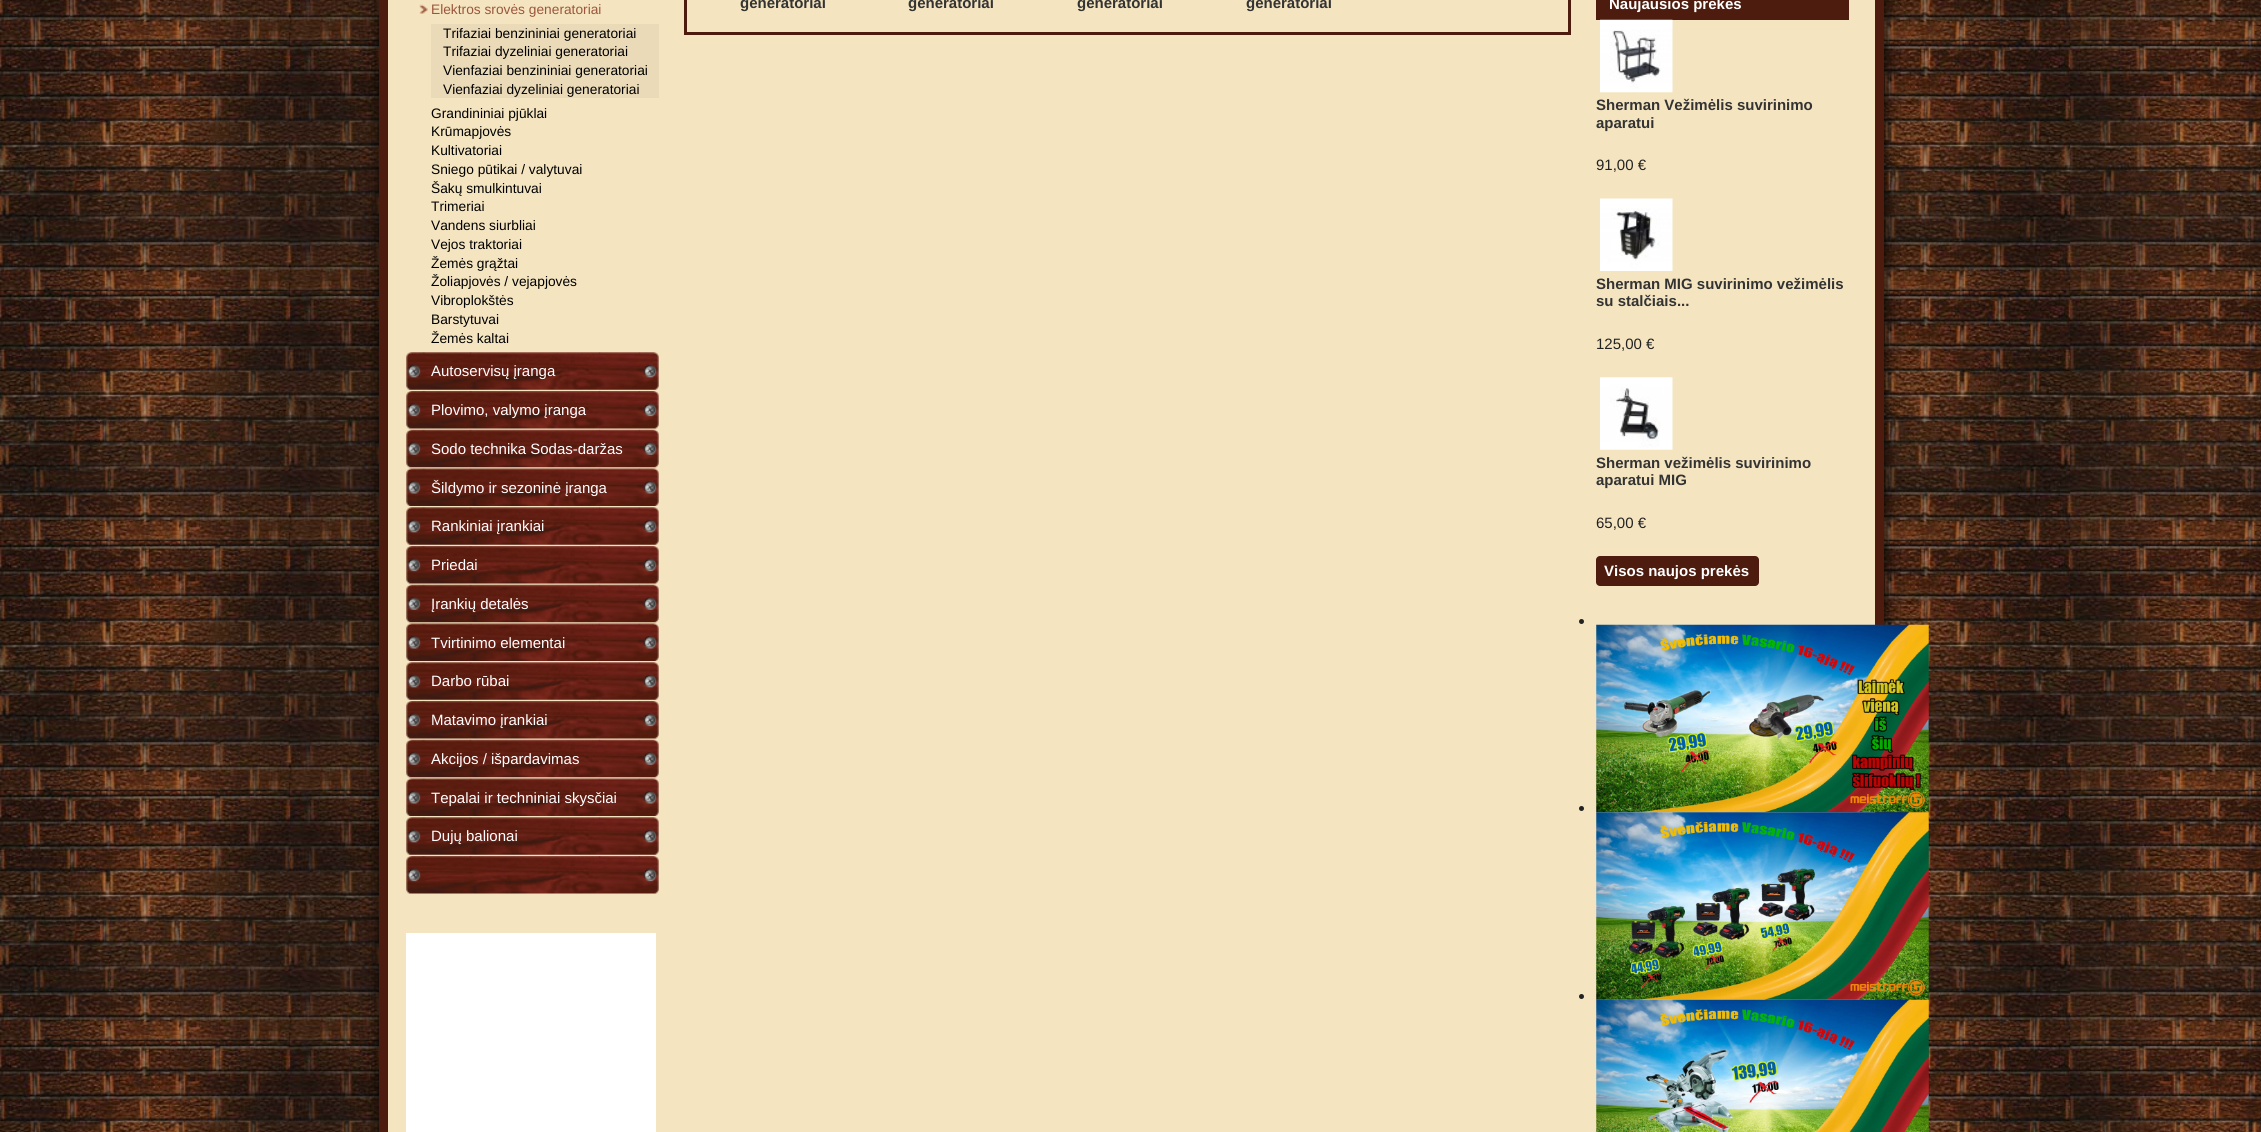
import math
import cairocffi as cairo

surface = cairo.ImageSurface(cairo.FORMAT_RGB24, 2261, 1132)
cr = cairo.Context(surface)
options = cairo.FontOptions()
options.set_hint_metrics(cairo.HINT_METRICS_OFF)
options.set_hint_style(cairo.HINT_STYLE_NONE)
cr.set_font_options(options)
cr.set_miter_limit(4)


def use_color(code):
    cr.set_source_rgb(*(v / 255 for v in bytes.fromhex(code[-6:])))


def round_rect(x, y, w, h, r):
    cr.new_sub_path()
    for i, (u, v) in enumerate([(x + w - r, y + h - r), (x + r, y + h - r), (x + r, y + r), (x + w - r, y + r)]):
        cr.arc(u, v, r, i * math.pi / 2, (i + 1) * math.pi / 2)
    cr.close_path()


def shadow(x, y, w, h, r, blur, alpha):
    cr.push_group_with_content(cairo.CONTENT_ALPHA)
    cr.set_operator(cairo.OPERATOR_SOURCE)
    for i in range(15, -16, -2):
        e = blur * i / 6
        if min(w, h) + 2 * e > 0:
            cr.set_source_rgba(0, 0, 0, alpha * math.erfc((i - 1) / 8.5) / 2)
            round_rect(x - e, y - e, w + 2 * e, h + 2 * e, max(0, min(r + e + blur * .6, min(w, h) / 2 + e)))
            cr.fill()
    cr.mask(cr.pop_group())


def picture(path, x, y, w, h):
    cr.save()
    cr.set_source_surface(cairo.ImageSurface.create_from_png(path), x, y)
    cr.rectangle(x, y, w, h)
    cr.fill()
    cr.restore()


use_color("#ffffff")
cr.paint()
picture("img1.png", 0, 0, 2261, 1132)
use_color("#000000")
shadow(379, -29, 1505, 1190, 0, 9.5, 1)
use_color("#f4e4c0")
cr.rectangle(383.5, -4.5, 1496, 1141)
cr.fill_preserve()
use_color("#4d1c0e")
cr.set_line_width(9)
cr.stroke()
picture("img2.png", 419, 4, 9, 10)
cr.select_font_face("Liberation Sans")
cr.set_font_size(13.75)
use_color("#9b563d")
cr.move_to(431, 14)
cr.show_text("Elektros srovės generatoriai")
use_color("#eadab8")
cr.rectangle(431, 24, 228, 74)
cr.fill()
use_color("#000000")
cr.move_to(443, 38)
cr.show_text("Trifaziai benzininiai generatoriai")
cr.move_to(443, 56)
cr.show_text("Trifaziai dyzeliniai generatoriai")
cr.move_to(443, 75)
cr.show_text("Vienfaziai benzininiai generatoriai")
cr.move_to(443, 94)
cr.show_text("Vienfaziai dyzeliniai generatoriai")
cr.move_to(431, 118)
cr.show_text("Grandininiai pjūklai")
cr.move_to(431, 136)
cr.show_text("Krūmapjovės")
cr.move_to(431, 155)
cr.show_text("Kultivatoriai")
cr.move_to(431, 174)
cr.show_text("Sniego pūtikai / valytuvai")
cr.move_to(431, 193)
cr.show_text("Šakų smulkintuvai")
cr.move_to(431, 211)
cr.show_text("Trimeriai")
cr.move_to(431, 230)
cr.show_text("Vandens siurbliai")
cr.move_to(431, 249)
cr.show_text("Vejos traktoriai")
cr.move_to(431, 268)
cr.show_text("Žemės grąžtai")
cr.move_to(431, 286)
cr.show_text("Žoliapjovės / vejapjovės")
cr.move_to(431, 305)
cr.show_text("Vibroplokštės")
cr.move_to(431, 324)
cr.show_text("Barstytuvai")
cr.move_to(431, 343)
cr.show_text("Žemės kaltai")
picture("img3.png", 406, 352, 253, 38)
cr.set_font_size(15)
use_color("#ffffff")
cr.move_to(431, 376)
cr.show_text("Autoservisų įranga")
picture("img4.png", 406, 391, 253, 38)
cr.move_to(431, 415)
cr.show_text("Plovimo, valymo įranga")
picture("img5.png", 406, 429, 253, 39)
cr.move_to(431, 454)
cr.show_text("Sodo technika Sodas-daržas")
picture("img6.png", 406, 468, 253, 38)
cr.move_to(431, 493)
cr.show_text("Šildymo ir sezoninė įranga")
picture("img3.png", 406, 507, 253, 38)
cr.move_to(431, 531)
cr.show_text("Rankiniai įrankiai")
picture("img4.png", 406, 546, 253, 38)
cr.move_to(431, 570)
cr.show_text("Priedai")
picture("img5.png", 406, 584, 253, 39)
cr.move_to(431, 609)
cr.show_text("Įrankių detalės")
picture("img6.png", 406, 623, 253, 38)
cr.move_to(431, 648)
cr.show_text("Tvirtinimo elementai")
picture("img3.png", 406, 662, 253, 38)
cr.move_to(431, 686)
cr.show_text("Darbo rūbai")
picture("img7.png", 406, 701, 253, 38)
cr.move_to(431, 725)
cr.show_text("Matavimo įrankiai")
picture("img5.png", 406, 739, 253, 39)
cr.move_to(431, 764)
cr.show_text("Akcijos / išpardavimas")
picture("img6.png", 406, 778, 253, 38)
cr.move_to(431, 803)
cr.show_text("Tepalai ir techniniai skysčiai")
picture("img3.png", 406, 817, 253, 38)
cr.move_to(431, 841)
cr.show_text("Dujų balionai")
picture("img4.png", 406, 856, 253, 38)
cr.rectangle(406, 933, 250, 199)
cr.fill()
cr.rectangle(685.5, -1.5, 884, 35)
use_color("#4d1c0e")
cr.set_line_width(3)
cr.stroke()
cr.select_font_face("Liberation Sans", cairo.FONT_SLANT_NORMAL, cairo.FONT_WEIGHT_BOLD)
use_color("#333333")
cr.move_to(740, 8)
cr.show_text("generatoriai")
cr.move_to(908, 8)
cr.show_text("generatoriai")
cr.move_to(1077, 8)
cr.show_text("generatoriai")
cr.move_to(1246, 8)
cr.show_text("generatoriai")
use_color("#4d1c0e")
cr.rectangle(1596, 0, 253, 20)
cr.fill()
use_color("#ffffff")
cr.move_to(1609, 9)
cr.show_text("Naujausios prekės")
picture("img8.png", 1600, 19, 73, 74)
use_color("#333333")
cr.move_to(1596, 110)
cr.show_text("Sherman Vežimėlis suvirinimo")
cr.move_to(1596, 128)
cr.show_text("aparatui")
cr.select_font_face("Liberation Sans")
use_color("#222222")
cr.move_to(1596, 170)
cr.show_text("91,00 €")
picture("img9.png", 1600, 198, 73, 73)
cr.select_font_face("Liberation Sans", cairo.FONT_SLANT_NORMAL, cairo.FONT_WEIGHT_BOLD)
use_color("#333333")
cr.move_to(1596, 289)
cr.show_text("Sherman MIG suvirinimo vežimėlis")
cr.move_to(1596, 306)
cr.show_text("su stalčiais...")
cr.select_font_face("Liberation Sans")
use_color("#222222")
cr.move_to(1596, 349)
cr.show_text("125,00 €")
picture("img10.png", 1600, 377, 73, 73)
cr.select_font_face("Liberation Sans", cairo.FONT_SLANT_NORMAL, cairo.FONT_WEIGHT_BOLD)
use_color("#333333")
cr.move_to(1596, 468)
cr.show_text("Sherman vežimėlis suvirinimo")
cr.move_to(1596, 485)
cr.show_text("aparatui MIG")
cr.select_font_face("Liberation Sans")
use_color("#222222")
cr.move_to(1596, 528)
cr.show_text("65,00 €")
use_color("#4d1c0e")
round_rect(1596, 556, 163, 30, 4)
cr.fill()
cr.select_font_face("Liberation Sans", cairo.FONT_SLANT_NORMAL, cairo.FONT_WEIGHT_BOLD)
use_color("#ffffff")
cr.move_to(1604, 576)
cr.show_text("Visos naujos prekės")
use_color("#222222")
cr.new_path()
cr.arc(1581.5, 621.5, 2.5, 0, 2 * math.pi)
cr.fill()
picture("img11.png", 1596, 624, 333, 189)
cr.arc(1581.5, 808.5, 2.5, 0, 2 * math.pi)
cr.fill()
picture("img12.png", 1596, 812, 333, 188)
cr.arc(1581.5, 996.5, 2.5, 0, 2 * math.pi)
cr.fill()
picture("img13.png", 1596, 999, 333, 133)
surface.write_to_png("result.png")
